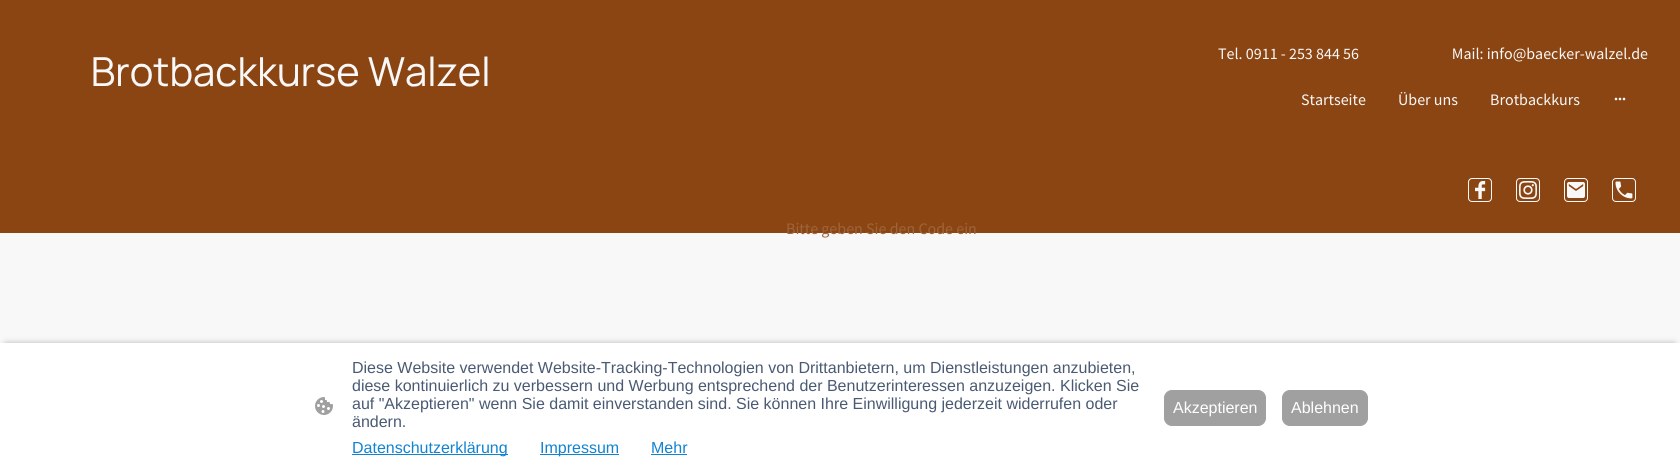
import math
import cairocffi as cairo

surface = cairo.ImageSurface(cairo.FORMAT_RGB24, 1680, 473)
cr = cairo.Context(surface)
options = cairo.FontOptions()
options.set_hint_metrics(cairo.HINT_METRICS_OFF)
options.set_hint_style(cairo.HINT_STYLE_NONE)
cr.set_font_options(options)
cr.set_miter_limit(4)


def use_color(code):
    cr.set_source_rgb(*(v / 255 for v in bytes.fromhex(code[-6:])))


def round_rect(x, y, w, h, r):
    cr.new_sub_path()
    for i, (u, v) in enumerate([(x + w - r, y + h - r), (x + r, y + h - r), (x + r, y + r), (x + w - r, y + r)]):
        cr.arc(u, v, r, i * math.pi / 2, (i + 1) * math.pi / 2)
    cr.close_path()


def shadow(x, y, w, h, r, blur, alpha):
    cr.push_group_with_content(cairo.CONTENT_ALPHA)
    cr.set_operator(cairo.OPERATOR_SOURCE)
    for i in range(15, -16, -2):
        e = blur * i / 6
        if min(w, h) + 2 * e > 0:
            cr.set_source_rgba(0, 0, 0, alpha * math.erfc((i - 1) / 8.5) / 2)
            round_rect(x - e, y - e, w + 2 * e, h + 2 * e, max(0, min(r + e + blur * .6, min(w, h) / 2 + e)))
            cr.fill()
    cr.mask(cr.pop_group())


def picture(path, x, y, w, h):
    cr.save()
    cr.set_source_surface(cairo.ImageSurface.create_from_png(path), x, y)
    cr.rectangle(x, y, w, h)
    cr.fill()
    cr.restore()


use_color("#8b4513")
cr.paint()
picture("img1.png", 93, 56, 395, 31)
cr.select_font_face("Source Sans Pro")
cr.set_font_size(16)
use_color("#f8f8f8")
cr.move_to(1218, 59)
cr.show_text("Tel. 0911 - 253 844 56                             Mail: info@baecker-walzel.de")
cr.move_to(1301, 105)
cr.show_text("Startseite")
cr.move_to(1398, 105)
cr.show_text("Über uns")
cr.move_to(1490, 105)
cr.show_text("Brotbackkurs")
picture("img2.png", 1614, 97, 12, 4)
picture("img3.png", 1468, 178, 24, 24)
picture("img4.png", 1516, 178, 24, 24)
picture("img5.png", 1564, 178, 24, 24)
picture("img6.png", 1612, 178, 24, 24)
cr.rectangle(0, 233, 1680, 110)
cr.fill()
use_color("#9e643a")
cr.move_to(786, 234)
cr.show_text("Bitte geben Sie den Code ein")
use_color("#000000")
shadow(6, 346, 1668, 118, 0, 4, 0.63)
use_color("#ffffff")
cr.rectangle(0, 343, 1680, 130)
cr.fill()
picture("img7.png", 315, 397, 18, 18)
cr.select_font_face("Liberation Sans")
use_color("#4a5a73")
cr.move_to(352, 373)
cr.show_text("Diese Website verwendet Website-Tracking-Technologien von Drittanbietern, um Dienstleistungen anzubieten,")
cr.move_to(352, 391)
cr.show_text("diese kontinuierlich zu verbessern und Werbung entsprechend der Benutzerinteressen anzuzeigen. Klicken Sie")
cr.move_to(352, 409)
cr.show_text("auf \"Akzeptieren\" wenn Sie damit einverstanden sind. Sie können Ihre Einwilligung jederzeit widerrufen oder")
cr.move_to(352, 427)
cr.show_text("ändern.")
use_color("#1183d1")
cr.rectangle(352, 454, 156, 1)
cr.fill()
cr.move_to(352, 453)
cr.show_text("Datenschutzerklärung")
cr.rectangle(540, 454, 79, 1)
cr.fill()
cr.move_to(540, 453)
cr.show_text("Impressum")
cr.move_to(651, 453)
cr.show_text("Mehr")
cr.rectangle(651, 454, 36, 1)
cr.fill()
use_color("#a0a0a0")
round_rect(1164.5, 390.5, 101, 35, 7.5)
cr.fill_preserve()
cr.set_line_width(1)
cr.stroke()
use_color("#ffffff")
cr.move_to(1173, 413)
cr.show_text("Akzeptieren")
use_color("#a0a0a0")
round_rect(1282.5, 390.5, 85, 35, 7.5)
cr.fill_preserve()
cr.stroke()
use_color("#ffffff")
cr.move_to(1291, 413)
cr.show_text("Ablehnen")
surface.write_to_png("result.png")
